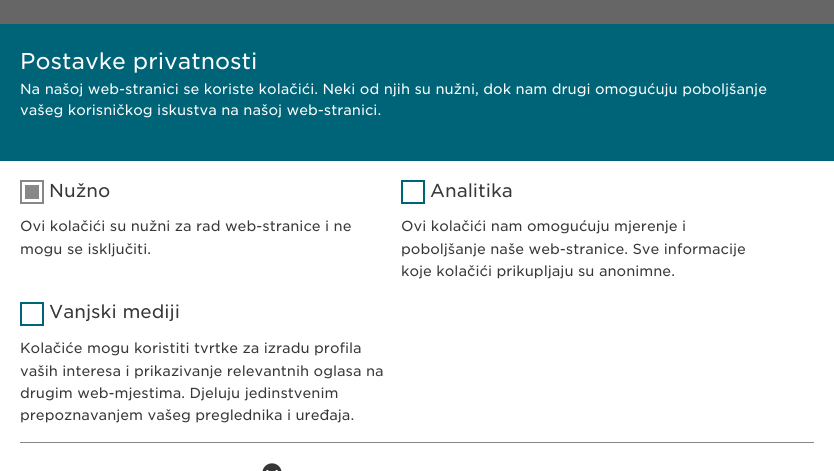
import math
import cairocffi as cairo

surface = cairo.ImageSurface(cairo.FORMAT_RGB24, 834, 471)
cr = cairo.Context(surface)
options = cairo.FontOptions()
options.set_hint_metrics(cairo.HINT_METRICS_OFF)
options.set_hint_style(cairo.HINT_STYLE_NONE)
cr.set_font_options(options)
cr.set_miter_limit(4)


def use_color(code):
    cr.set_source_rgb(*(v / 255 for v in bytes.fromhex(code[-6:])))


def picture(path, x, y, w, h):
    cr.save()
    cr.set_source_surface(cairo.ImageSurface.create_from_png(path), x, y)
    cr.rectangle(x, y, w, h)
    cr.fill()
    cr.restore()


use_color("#666666")
cr.paint()
use_color("#ffffff")
cr.rectangle(0, 161, 834, 310)
cr.fill()
use_color("#006478")
cr.rectangle(0, 24, 834, 137)
cr.fill()
cr.select_font_face("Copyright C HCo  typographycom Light")
cr.set_font_size(22)
use_color("#ffffff")
cr.move_to(20, 69)
cr.show_text("Postavke privatnosti")
cr.set_font_size(14)
cr.move_to(20, 94)
cr.show_text("Na našoj web-stranici se koriste kolačići. Neki od njih su nužni, dok nam drugi omogućuju poboljšanje")
cr.move_to(20, 115)
cr.show_text("vašeg korisničkog iskustva na našoj web-stranici.")
use_color("#888888")
cr.rectangle(20, 442, 794, 1)
cr.fill()
cr.rectangle(20, 180, 24, 24)
cr.fill()
cr.rectangle(23.5, 183.5, 17, 17)
use_color("#ffffff")
cr.set_line_width(3)
cr.stroke()
cr.set_font_size(18)
use_color("#373737")
cr.move_to(49, 197)
cr.show_text("Nužno")
cr.set_font_size(14)
cr.move_to(20, 231)
cr.show_text("Ovi kolačići su nužni za rad web-stranice i ne")
cr.move_to(20, 254)
cr.show_text("mogu se isključiti.")
cr.rectangle(402, 181, 22, 22)
use_color("#006478")
cr.set_line_width(2)
cr.stroke()
cr.set_font_size(18)
use_color("#373737")
cr.move_to(430, 197)
cr.show_text("Analitika")
cr.set_font_size(14)
cr.move_to(401, 231)
cr.show_text("Ovi kolačići nam omogućuju mjerenje i")
cr.move_to(401, 254)
cr.show_text("poboljšanje naše web-stranice. Sve informacije")
cr.move_to(401, 276)
cr.show_text("koje kolačići prikupljaju su anonimne.")
cr.rectangle(21, 303, 22, 22)
use_color("#006478")
cr.stroke()
cr.set_font_size(18)
use_color("#373737")
cr.move_to(49, 318)
cr.show_text("Vanjski mediji")
cr.set_font_size(14)
cr.move_to(20, 353)
cr.show_text("Kolačiće mogu koristiti tvrtke za izradu profila")
cr.move_to(20, 376)
cr.show_text("vaših interesa i prikazivanje relevantnih oglasa na")
cr.move_to(20, 398)
cr.show_text("drugim web-mjestima. Djeluju jedinstvenim")
cr.move_to(20, 420)
cr.show_text("prepoznavanjem vašeg preglednika i uređaja.")
picture("img1.png", 262, 463, 20, 8)
surface.write_to_png("result.png")
